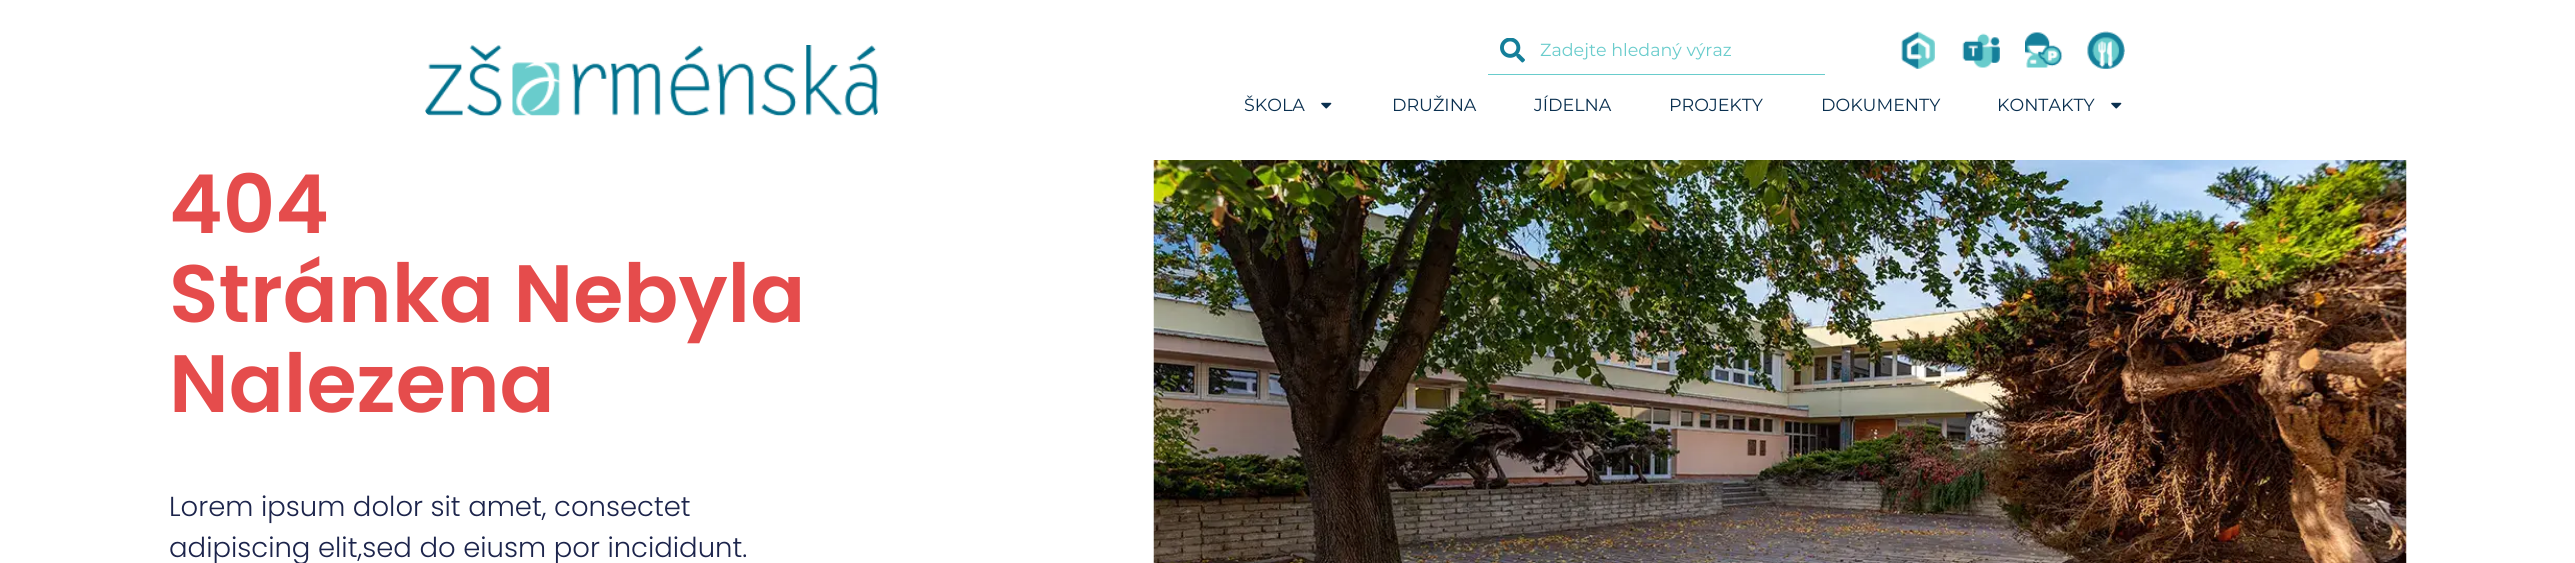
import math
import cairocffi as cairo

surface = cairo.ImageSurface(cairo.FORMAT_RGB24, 2575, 563)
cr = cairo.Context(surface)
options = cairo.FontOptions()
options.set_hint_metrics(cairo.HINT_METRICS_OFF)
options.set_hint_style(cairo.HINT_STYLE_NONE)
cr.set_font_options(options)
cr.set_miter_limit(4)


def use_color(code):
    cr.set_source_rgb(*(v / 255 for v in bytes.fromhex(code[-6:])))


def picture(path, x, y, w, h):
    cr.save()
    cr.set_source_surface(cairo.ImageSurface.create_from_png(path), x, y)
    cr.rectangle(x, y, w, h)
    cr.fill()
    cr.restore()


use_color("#ffffff")
cr.paint()
picture("img1.png", 425, 45, 454, 72)
picture("img2.png", 1500, 38, 25, 25)
use_color("#69cccc")
cr.rectangle(1488, 74, 337, 1)
cr.fill()
cr.select_font_face("Montserrat")
cr.set_font_size(17.5)
cr.move_to(1540, 56)
cr.show_text("Zadejte hledaný výraz")
picture("img3.png", 1901, 31, 34, 38)
picture("img4.png", 1962, 33, 38, 35)
picture("img5.png", 2025, 32, 38, 36)
picture("img6.png", 2087, 31, 38, 38)
use_color("#092f4f")
cr.move_to(1244, 111)
cr.show_text("ŠKOLA")
picture("img7.png", 1321, 102, 11, 7)
cr.move_to(1392, 111)
cr.show_text("DRUŽINA")
cr.move_to(1534, 111)
cr.show_text("JÍDELNA")
cr.move_to(1669, 111)
cr.show_text("PROJEKTY")
cr.move_to(1821, 111)
cr.show_text("DOKUMENTY")
cr.move_to(1997, 111)
cr.show_text("KONTAKTY")
picture("img7.png", 2111, 102, 11, 7)
cr.select_font_face("Poppins SemiBold")
cr.set_font_size(81.25)
use_color("#e54c4c")
cr.move_to(169, 233)
cr.show_text("404")
cr.move_to(169, 322)
cr.show_text("Stránka Nebyla")
cr.move_to(169, 412)
cr.show_text("Nalezena")
cr.select_font_face("Poppins Light")
cr.set_font_size(27.5)
use_color("#1c244b")
cr.move_to(169, 516)
cr.show_text("Lorem ipsum dolor sit amet, consectet")
cr.move_to(169, 557)
cr.show_text("adipiscing elit,sed do eiusm por incididunt.")
picture("img8.png", 1153, 160, 1254, 403)
surface.write_to_png("result.png")
